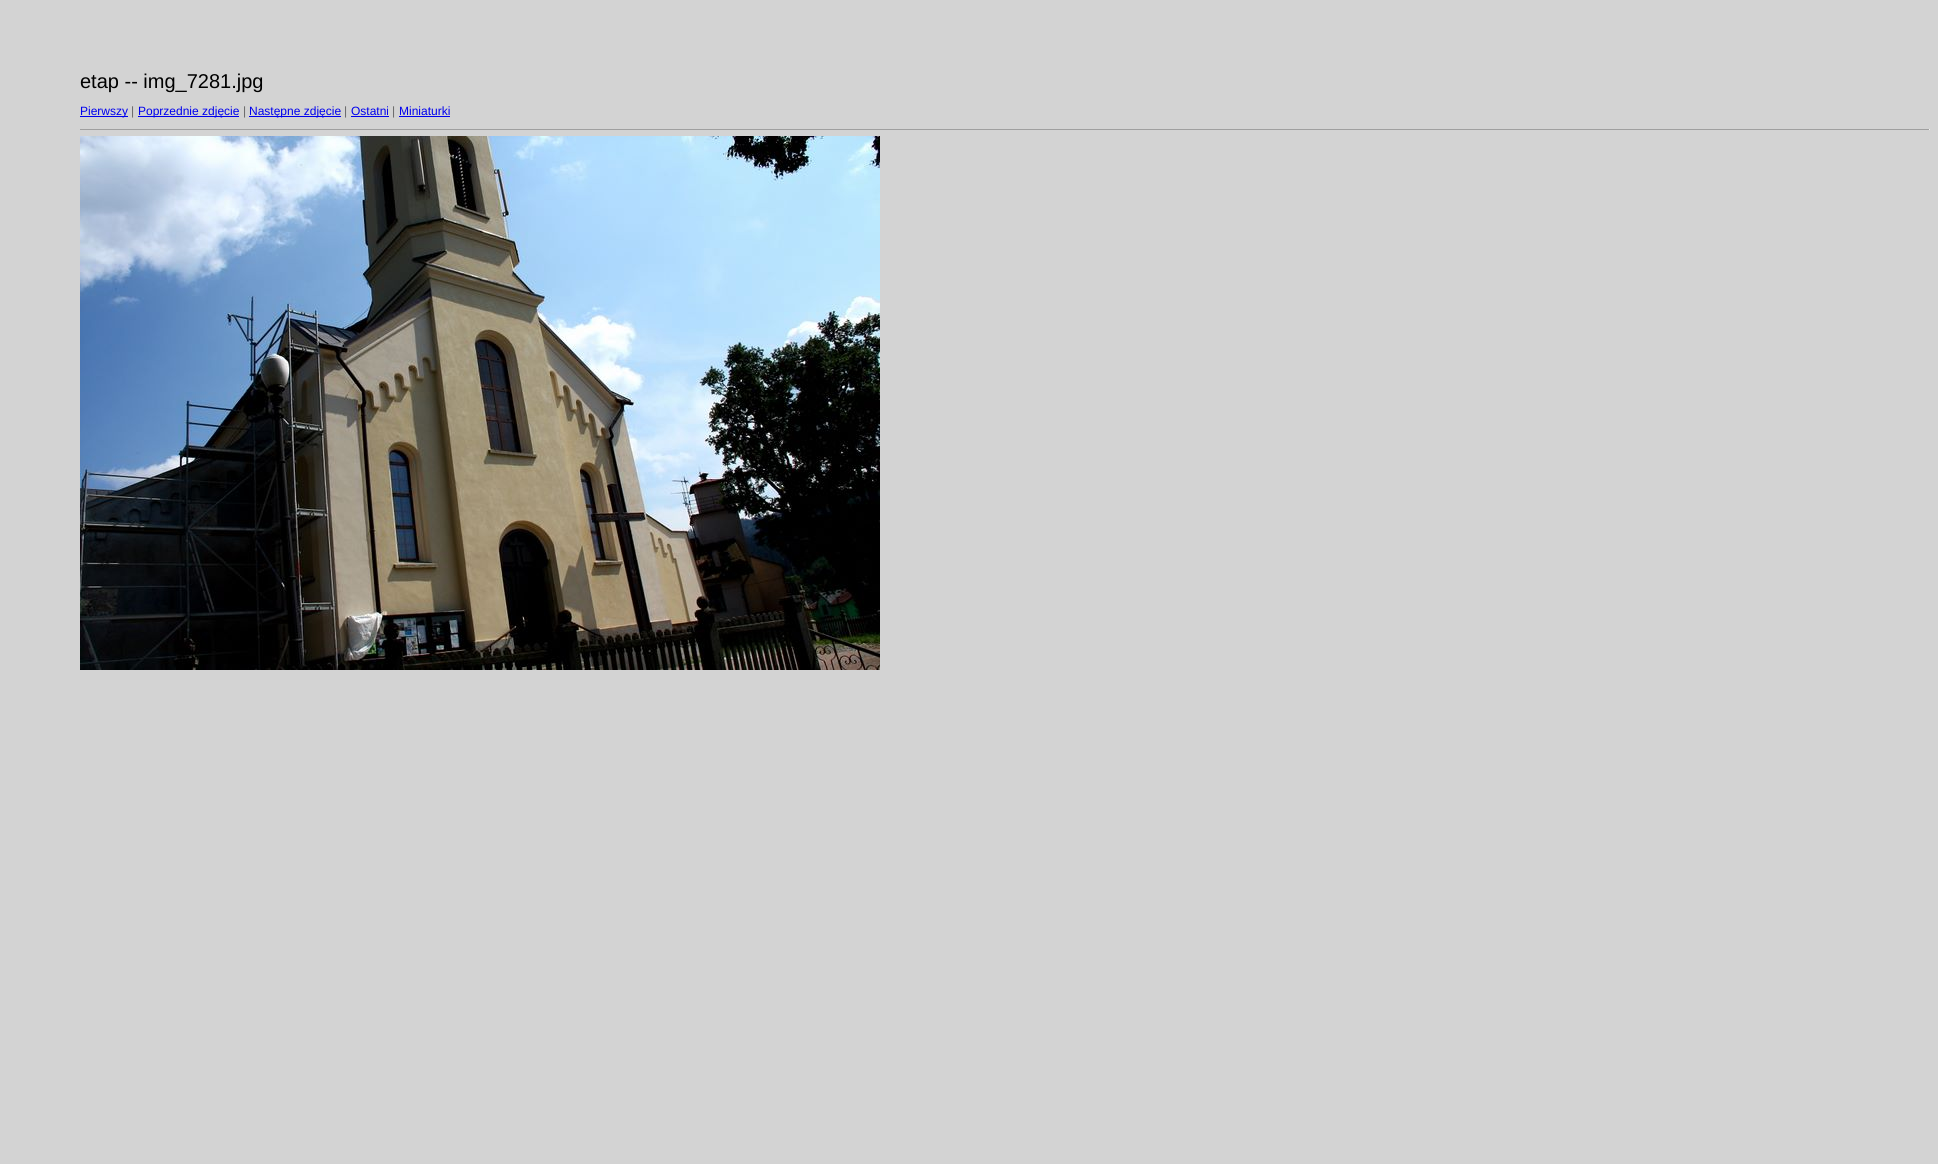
import math
import cairocffi as cairo

surface = cairo.ImageSurface(cairo.FORMAT_RGB24, 1938, 1164)
cr = cairo.Context(surface)
options = cairo.FontOptions()
options.set_hint_metrics(cairo.HINT_METRICS_OFF)
options.set_hint_style(cairo.HINT_STYLE_NONE)
cr.set_font_options(options)
cr.set_miter_limit(4)


def use_color(code):
    cr.set_source_rgb(*(v / 255 for v in bytes.fromhex(code[-6:])))


def picture(path, x, y, w, h):
    cr.save()
    cr.set_source_surface(cairo.ImageSurface.create_from_png(path), x, y)
    cr.rectangle(x, y, w, h)
    cr.fill()
    cr.restore()


use_color("#d3d3d3")
cr.paint()
cr.select_font_face("Liberation Sans")
cr.set_font_size(20)
use_color("#000000")
cr.move_to(80, 88)
cr.show_text("etap -- img_7281.jpg")
use_color("#0000ee")
cr.rectangle(80, 116, 48, 1)
cr.fill()
cr.set_font_size(12)
cr.move_to(80, 115)
cr.show_text("Pierwszy")
use_color("#666666")
cr.move_to(131, 115)
cr.show_text("|")
use_color("#0000ee")
cr.rectangle(138, 116, 101, 1)
cr.fill()
cr.move_to(138, 115)
cr.show_text("Poprzednie zdjęcie")
use_color("#666666")
cr.move_to(243, 115)
cr.show_text("|")
use_color("#0000ee")
cr.rectangle(249, 116, 92, 1)
cr.fill()
cr.move_to(249, 115)
cr.show_text("Następne zdjęcie")
use_color("#666666")
cr.move_to(344, 115)
cr.show_text("|")
use_color("#0000ee")
cr.move_to(351, 115)
cr.show_text("Ostatni")
cr.rectangle(351, 116, 38, 1)
cr.fill()
use_color("#666666")
cr.move_to(392, 115)
cr.show_text("|")
use_color("#0000ee")
cr.move_to(399, 115)
cr.show_text("Miniaturki")
cr.rectangle(399, 116, 51, 1)
cr.fill()
use_color("#9f9f9f")
cr.rectangle(80, 129, 1850, 1)
cr.fill()
use_color("#eeeeee")
cr.rectangle(1929, 129, 1, 1)
cr.fill()
picture("img1.png", 80, 136, 800, 534)
surface.write_to_png("result.png")
